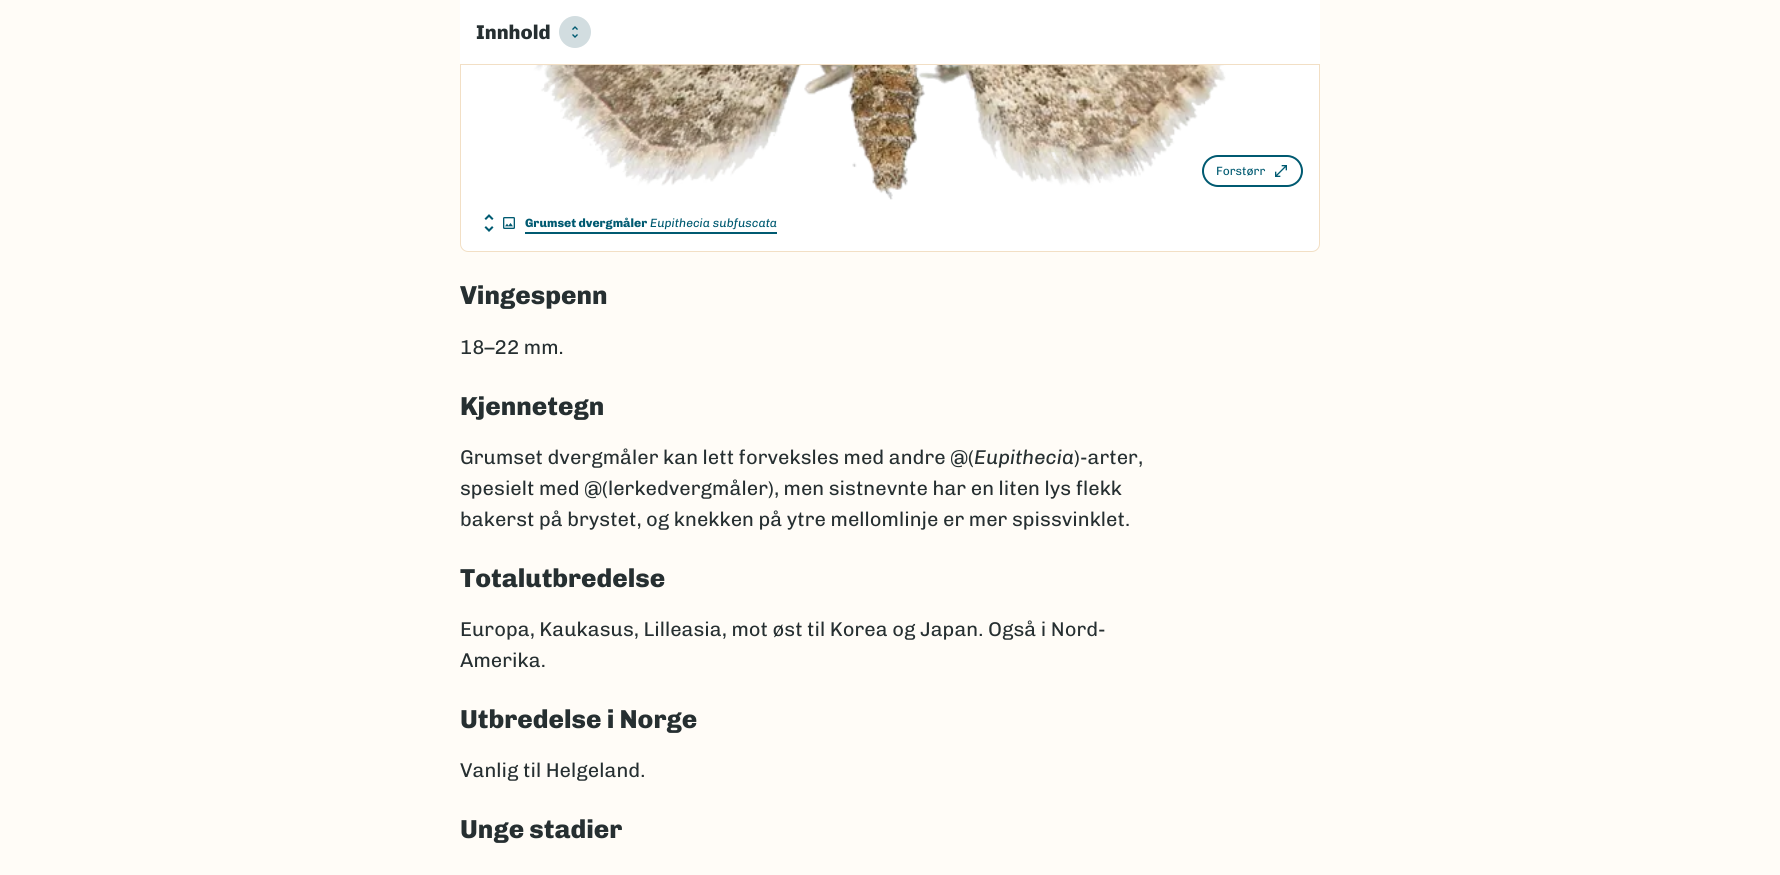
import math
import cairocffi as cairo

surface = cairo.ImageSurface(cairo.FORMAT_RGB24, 1780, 875)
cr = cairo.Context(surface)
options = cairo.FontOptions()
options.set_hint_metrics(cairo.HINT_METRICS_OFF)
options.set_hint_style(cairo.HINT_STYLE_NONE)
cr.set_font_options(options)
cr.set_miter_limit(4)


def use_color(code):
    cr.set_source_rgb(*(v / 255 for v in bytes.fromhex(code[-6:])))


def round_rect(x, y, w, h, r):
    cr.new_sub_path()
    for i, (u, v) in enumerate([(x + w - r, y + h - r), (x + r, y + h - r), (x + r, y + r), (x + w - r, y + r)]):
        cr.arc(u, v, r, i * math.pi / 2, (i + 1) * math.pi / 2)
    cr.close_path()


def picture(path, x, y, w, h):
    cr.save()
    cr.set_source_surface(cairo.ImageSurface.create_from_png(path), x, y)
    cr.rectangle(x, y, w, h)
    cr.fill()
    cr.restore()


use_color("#fffcf7")
cr.paint()
use_color("#ffffff")
cr.new_path()
cr.move_to(460.5, -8.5)
cr.line_to(1319.5, -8.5)
cr.line_to(1319.5, 244)
cr.curve_to(1319.5, 248, 1316, 251.5, 1312, 251.5)
cr.line_to(468, 251.5)
cr.curve_to(464, 251.5, 460.5, 248, 460.5, 244)
cr.close_path()
cr.fill_preserve()
use_color("#f2dfc5")
cr.set_line_width(1)
cr.stroke()
use_color("#ffffff")
cr.rectangle(460, 0, 860, 64)
cr.fill()
cr.select_font_face("Chivo ExtraBold")
cr.set_font_size(20)
use_color("#262f31")
cr.move_to(476, 39)
cr.show_text("Innhold")
use_color("#d2dde0")
cr.new_path()
cr.arc(575, 32, 15, 0, 2 * math.pi)
cr.fill_preserve()
cr.set_line_width(2)
cr.stroke()
picture("img1.png", 572, 26, 6, 12)
use_color("#f2dfc5")
cr.rectangle(460, 64, 860, 1)
cr.fill()
picture("img2.png", 533, 65, 693, 135)
round_rect(1203, 156, 99, 30, 15)
use_color("#005a71")
cr.stroke()
cr.select_font_face("Chivo")
cr.set_font_size(12)
cr.move_to(1216, 175)
cr.show_text("Forstørr")
picture("img3.png", 1275, 165, 12, 12)
picture("img4.png", 484, 214, 10, 18)
picture("img5.png", 503, 217, 12, 12)
cr.select_font_face("Chivo ExtraBold")
cr.move_to(525, 227)
cr.show_text("Grumset dvergmåler")
cr.select_font_face("Chivo", cairo.FONT_SLANT_ITALIC)
cr.move_to(650, 227)
cr.show_text("Eupithecia subfuscata")
cr.rectangle(525, 232, 252, 2)
cr.fill()
cr.select_font_face("Chivo ExtraBold")
cr.set_font_size(26)
use_color("#262f31")
cr.move_to(460, 304)
cr.show_text("Vingespenn")
cr.select_font_face("Chivo")
cr.set_font_size(20)
cr.move_to(460, 354)
cr.show_text("18–22 mm.")
cr.select_font_face("Chivo ExtraBold")
cr.set_font_size(26)
cr.move_to(460, 415)
cr.show_text("Kjennetegn")
cr.select_font_face("Chivo")
cr.set_font_size(20)
cr.move_to(460, 464)
cr.show_text("Grumset dvergmåler kan lett forveksles med andre @(")
cr.select_font_face("Chivo", cairo.FONT_SLANT_ITALIC)
cr.move_to(974, 464)
cr.show_text("Eupithecia")
cr.select_font_face("Chivo")
cr.move_to(1074, 464)
cr.show_text(")-arter,")
cr.move_to(460, 495)
cr.show_text("spesielt med @(lerkedvergmåler), men sistnevnte har en liten lys flekk")
cr.move_to(460, 526)
cr.show_text("bakerst på brystet, og knekken på ytre mellomlinje er mer spissvinklet.")
cr.select_font_face("Chivo ExtraBold")
cr.set_font_size(26)
cr.move_to(460, 587)
cr.show_text("Totalutbredelse")
cr.select_font_face("Chivo")
cr.set_font_size(20)
cr.move_to(460, 636)
cr.show_text("Europa, Kaukasus, Lilleasia, mot øst til Korea og Japan. Også i Nord-")
cr.move_to(460, 667)
cr.show_text("Amerika.")
cr.select_font_face("Chivo ExtraBold")
cr.set_font_size(26)
cr.move_to(460, 728)
cr.show_text("Utbredelse i Norge")
cr.select_font_face("Chivo")
cr.set_font_size(20)
cr.move_to(460, 777)
cr.show_text("Vanlig til Helgeland.")
cr.select_font_face("Chivo ExtraBold")
cr.set_font_size(26)
cr.move_to(460, 838)
cr.show_text("Unge stadier")
surface.write_to_png("result.png")
